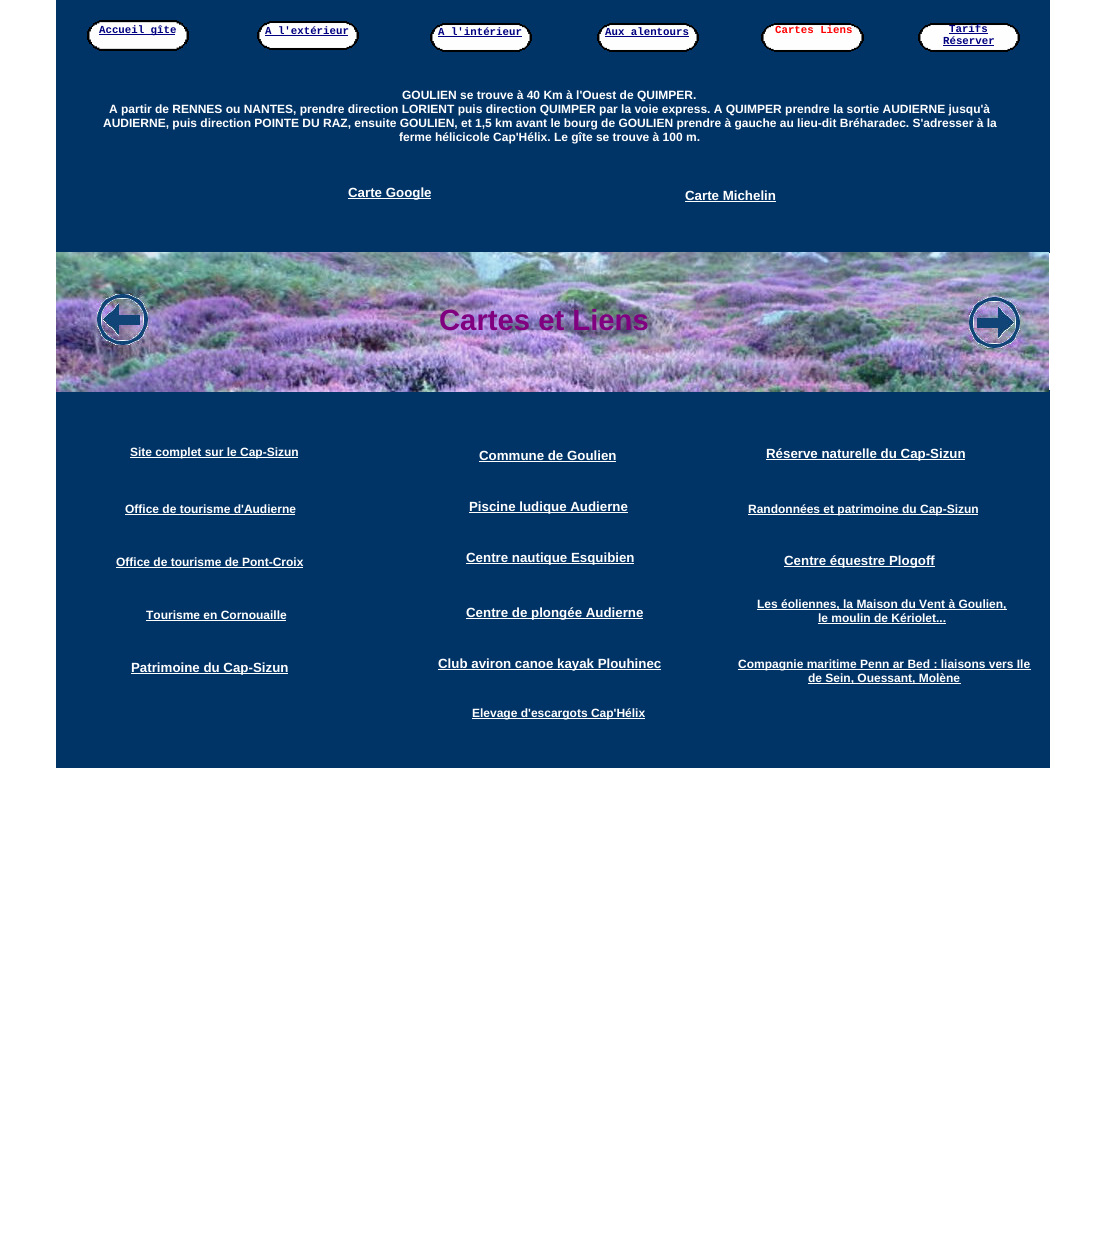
import math
import cairocffi as cairo

surface = cairo.ImageSurface(cairo.FORMAT_RGB24, 1105, 1253)
cr = cairo.Context(surface)
options = cairo.FontOptions()
options.set_hint_metrics(cairo.HINT_METRICS_OFF)
options.set_hint_style(cairo.HINT_STYLE_NONE)
cr.set_font_options(options)
cr.set_miter_limit(4)


def use_color(code):
    cr.set_source_rgb(*(v / 255 for v in bytes.fromhex(code[-6:])))


def picture(path, x, y, w, h):
    cr.save()
    cr.set_source_surface(cairo.ImageSurface.create_from_png(path), x, y)
    cr.rectangle(x, y, w, h)
    cr.fill()
    cr.restore()


use_color("#ffffff")
cr.paint()
picture("img1.png", 56, 0, 994, 768)
picture("img2.png", 87, 20, 102, 31)
picture("img3.png", 257, 21, 102, 29)
picture("img3.png", 430, 23, 102, 29)
picture("img3.png", 597, 23, 102, 29)
picture("img4.png", 761, 23, 103, 29)
picture("img3.png", 918, 23, 102, 29)
use_color("#000080")
cr.rectangle(99, 34, 76, 1)
cr.fill()
cr.select_font_face("Liberation Mono", cairo.FONT_SLANT_NORMAL, cairo.FONT_WEIGHT_BOLD)
cr.set_font_size(10.75)
cr.move_to(99, 33)
cr.show_text("Accueil gîte")
cr.move_to(265, 34)
cr.show_text("A l'extérieur")
cr.rectangle(265, 35, 83, 1)
cr.fill()
cr.move_to(438, 35)
cr.show_text("A l'intérieur")
cr.rectangle(438, 36, 84, 1)
cr.fill()
cr.move_to(605, 35)
cr.show_text("Aux alentours")
cr.rectangle(605, 36, 84, 1)
cr.fill()
use_color("#ff0000")
cr.move_to(775, 33)
cr.show_text("Cartes Liens")
use_color("#000080")
cr.move_to(949, 32)
cr.show_text("Tarifs")
cr.rectangle(949, 33, 39, 1)
cr.fill()
cr.move_to(943, 44)
cr.show_text("Réserver")
cr.rectangle(943, 45, 51, 1)
cr.fill()
cr.select_font_face("Liberation Sans", cairo.FONT_SLANT_NORMAL, cairo.FONT_WEIGHT_BOLD)
cr.set_font_size(12)
use_color("#ffffff")
cr.move_to(402, 99)
cr.show_text("GOULIEN se trouve à 40 Km à l'Ouest de QUIMPER.")
cr.move_to(109, 113)
cr.show_text("A partir de RENNES ou NANTES, prendre direction LORIENT puis direction QUIMPER par la voie express. A QUIMPER prendre la sortie AUDIERNE jusqu'à")
cr.move_to(103, 127)
cr.show_text("AUDIERNE, puis direction POINTE DU RAZ, ensuite GOULIEN, et 1,5 km avant le bourg de GOULIEN prendre à gauche au lieu-dit Bréharadec. S'adresser à la")
cr.move_to(399, 141)
cr.show_text("ferme hélicicole Cap'Hélix. Le gîte se trouve à 100 m.")
cr.rectangle(348, 198, 83, 1)
cr.fill()
cr.set_font_size(13.3)
cr.move_to(348, 197)
cr.show_text("Carte Google")
cr.move_to(685, 200)
cr.show_text("Carte Michelin")
cr.rectangle(685, 201, 91, 1)
cr.fill()
picture("img5.png", 56, 252, 993, 140)
picture("img6.png", 95, 292, 55, 55)
cr.set_font_size(29.25)
use_color("#800080")
cr.move_to(439, 330)
cr.show_text("Cartes et Liens")
picture("img7.png", 967, 295, 55, 55)
use_color("#ffffff")
cr.rectangle(130, 457, 168, 1)
cr.fill()
cr.set_font_size(12)
cr.move_to(130, 456)
cr.show_text("Site complet sur le Cap-Sizun")
cr.set_font_size(13.3)
cr.move_to(479, 460)
cr.show_text("Commune de Goulien")
cr.rectangle(479, 461, 137, 1)
cr.fill()
cr.rectangle(766, 459, 199, 1)
cr.fill()
cr.move_to(766, 458)
cr.show_text("Réserve naturelle du Cap-Sizun")
cr.set_font_size(12)
cr.move_to(125, 513)
cr.show_text("Office de tourisme d'Audierne")
cr.rectangle(125, 514, 170, 1)
cr.fill()
cr.rectangle(469, 512, 159, 1)
cr.fill()
cr.set_font_size(13.3)
cr.move_to(469, 511)
cr.show_text("Piscine ludique Audierne")
cr.rectangle(748, 514, 230, 1)
cr.fill()
cr.set_font_size(12)
cr.move_to(748, 513)
cr.show_text("Randonnées et patrimoine du Cap-Sizun")
cr.move_to(116, 566)
cr.show_text("Office de tourisme de Pont-Croix")
cr.rectangle(116, 567, 187, 1)
cr.fill()
cr.rectangle(466, 563, 168, 1)
cr.fill()
cr.set_font_size(13.3)
cr.move_to(466, 562)
cr.show_text("Centre nautique Esquibien")
cr.rectangle(784, 566, 151, 1)
cr.fill()
cr.move_to(784, 565)
cr.show_text("Centre équestre Plogoff")
cr.set_font_size(12)
cr.move_to(146, 619)
cr.show_text("Tourisme en Cornouaille")
cr.rectangle(146, 620, 140, 1)
cr.fill()
cr.rectangle(466, 618, 177, 1)
cr.fill()
cr.set_font_size(13.3)
cr.move_to(466, 617)
cr.show_text("Centre de plongée Audierne")
cr.rectangle(757, 609, 250, 1)
cr.fill()
cr.set_font_size(12)
cr.move_to(757, 608)
cr.show_text("Les éoliennes, la Maison du Vent à Goulien,")
cr.move_to(818, 622)
cr.show_text("le moulin de Kériolet...")
cr.rectangle(818, 623, 128, 1)
cr.fill()
cr.rectangle(131, 673, 157, 1)
cr.fill()
cr.set_font_size(13.3)
cr.move_to(131, 672)
cr.show_text("Patrimoine du Cap-Sizun")
cr.rectangle(438, 669, 223, 1)
cr.fill()
cr.move_to(438, 668)
cr.show_text("Club aviron canoe kayak Plouhinec")
cr.rectangle(738, 669, 293, 1)
cr.fill()
cr.set_font_size(12)
cr.move_to(738, 668)
cr.show_text("Compagnie maritime Penn ar Bed : liaisons vers Ile")
cr.rectangle(808, 683, 153, 1)
cr.fill()
cr.move_to(808, 682)
cr.show_text("de Sein, Ouessant, Molène")
cr.rectangle(472, 718, 173, 1)
cr.fill()
cr.move_to(472, 717)
cr.show_text("Elevage d'escargots Cap'Hélix")
surface.write_to_png("result.png")
